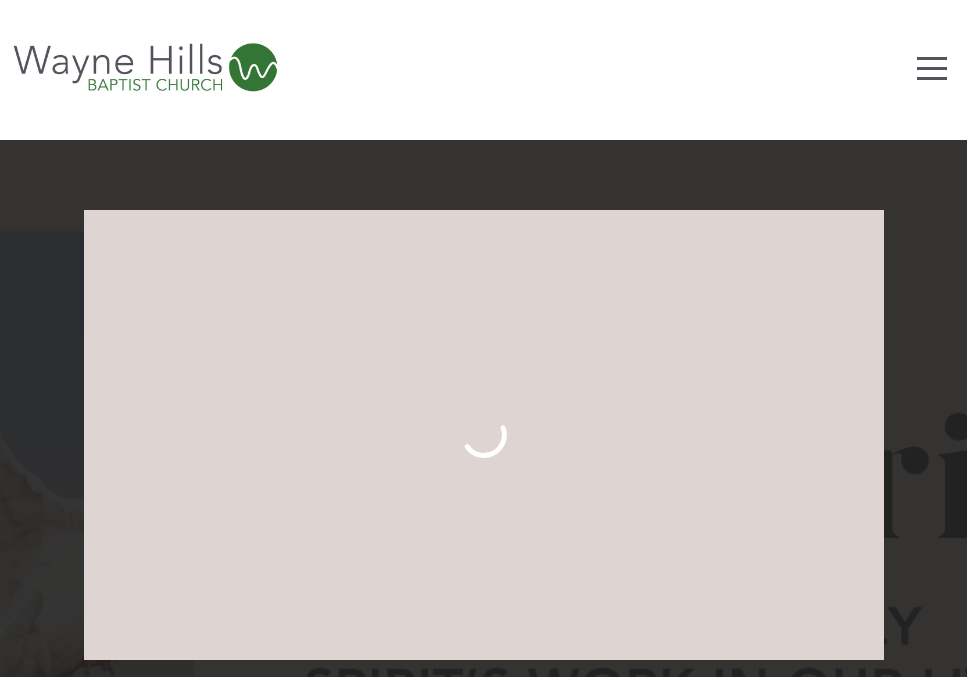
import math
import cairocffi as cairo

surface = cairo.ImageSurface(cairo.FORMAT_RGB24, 967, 677)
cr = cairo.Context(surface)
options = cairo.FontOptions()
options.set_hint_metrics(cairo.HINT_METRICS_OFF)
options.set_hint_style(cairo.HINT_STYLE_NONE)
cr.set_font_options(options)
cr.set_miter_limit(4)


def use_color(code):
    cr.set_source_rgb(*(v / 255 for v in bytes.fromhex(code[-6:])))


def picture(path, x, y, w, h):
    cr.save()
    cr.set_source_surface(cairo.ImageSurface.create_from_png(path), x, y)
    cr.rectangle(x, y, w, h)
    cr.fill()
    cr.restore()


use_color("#ffffff")
cr.paint()
picture("img1.png", 13, 43, 265, 49)
use_color("#52535b")
cr.rectangle(917, 57, 30, 3)
cr.fill()
cr.rectangle(917, 67, 30, 3)
cr.fill()
cr.rectangle(917, 77, 30, 3)
cr.fill()
picture("img2.png", 0, 140, 967, 537)
picture("img3.png", 84, 210, 800, 450)
surface.write_to_png("result.png")
